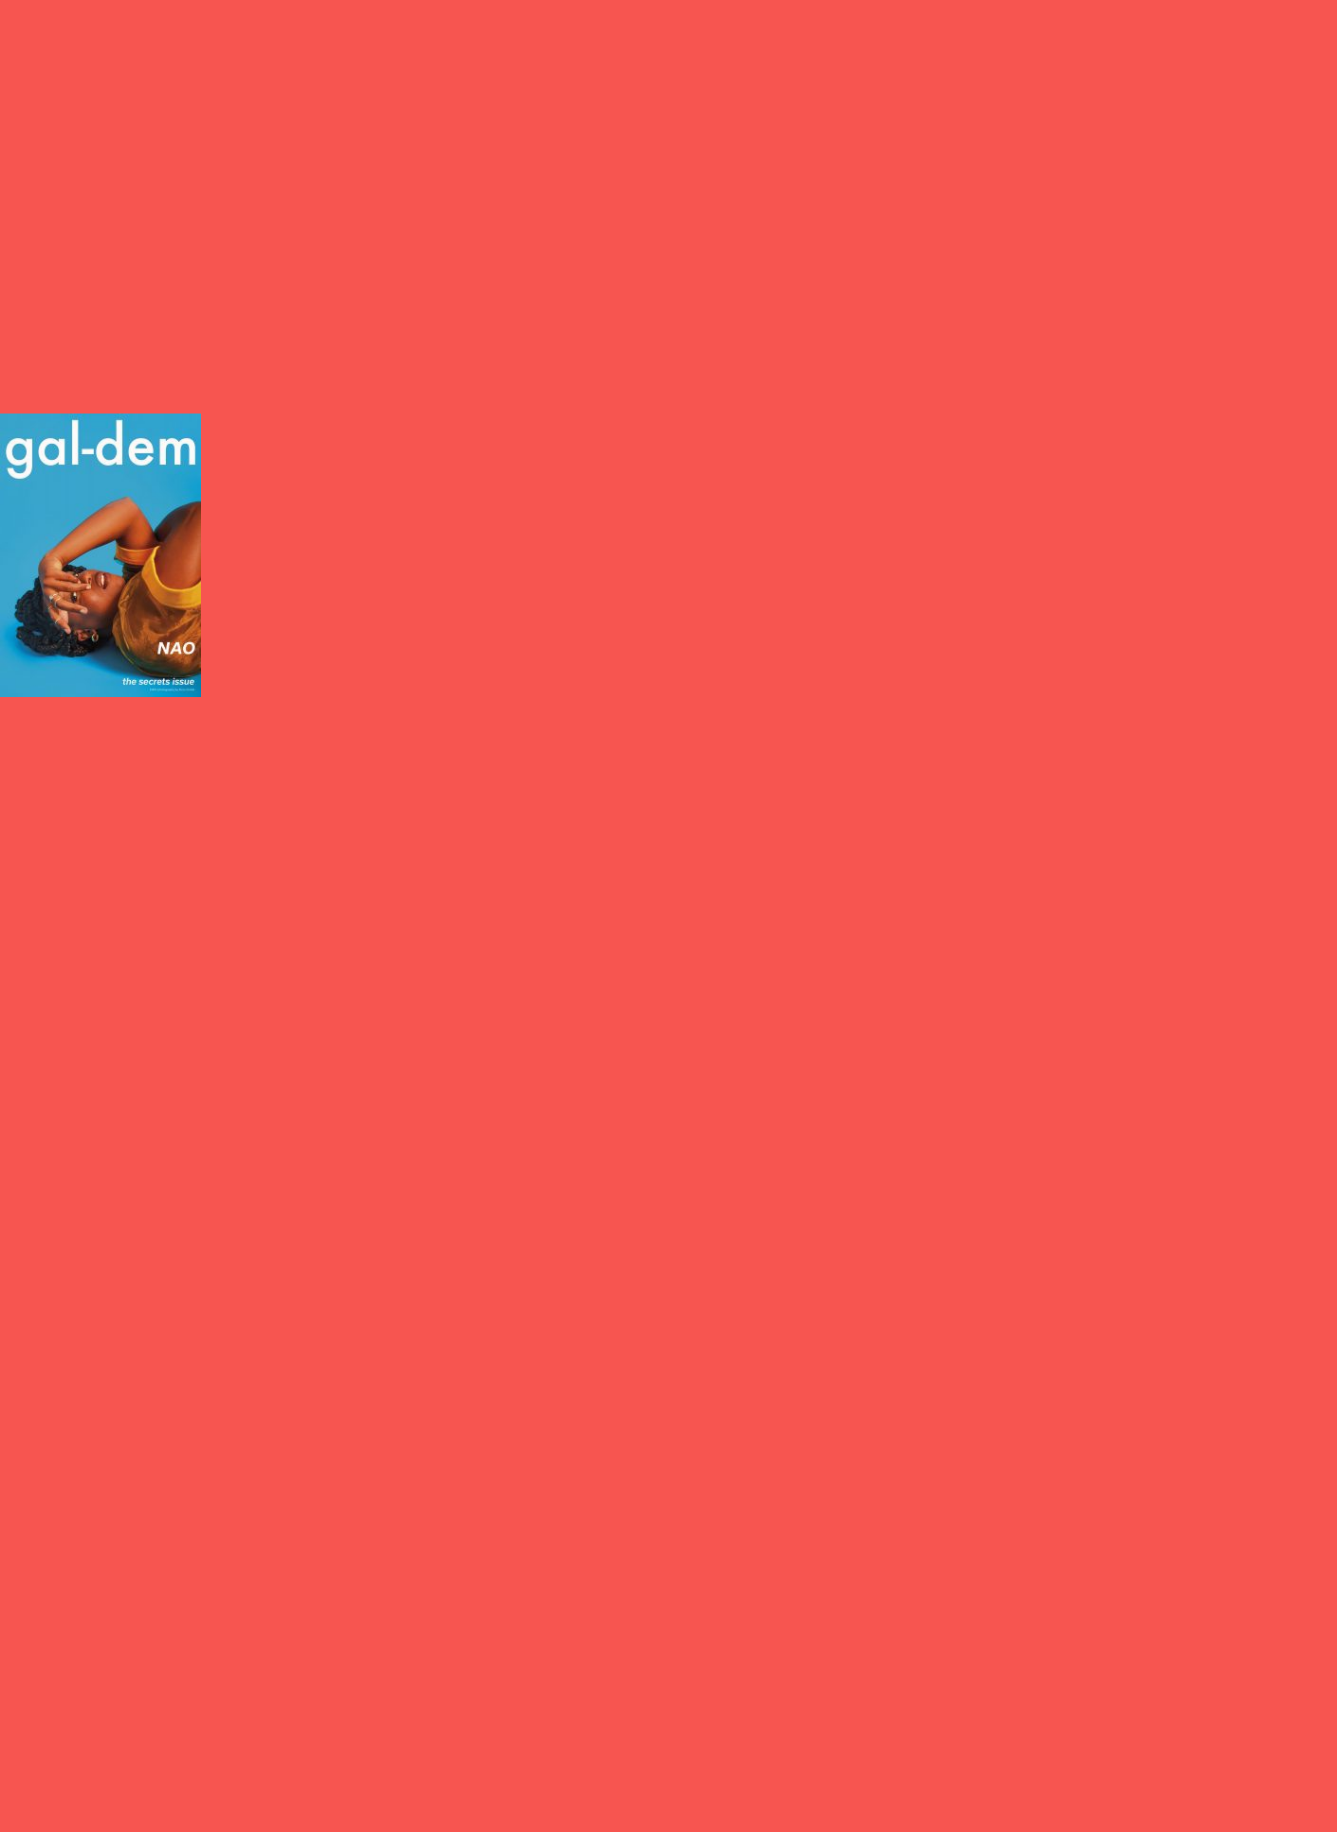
import math
import cairocffi as cairo

surface = cairo.ImageSurface(cairo.FORMAT_RGB24, 1337, 1832)
cr = cairo.Context(surface)
options = cairo.FontOptions()
options.set_hint_metrics(cairo.HINT_METRICS_OFF)
options.set_hint_style(cairo.HINT_STYLE_NONE)
cr.set_font_options(options)
cr.set_miter_limit(4)


def use_color(code):
    cr.set_source_rgb(*(v / 255 for v in bytes.fromhex(code[-6:])))


def picture(path, x, y, w, h):
    cr.save()
    cr.set_source_surface(cairo.ImageSurface.create_from_png(path), x, y)
    cr.rectangle(x, y, w, h)
    cr.fill()
    cr.restore()


use_color("#f75550")
cr.paint()
picture("img1.png", 0, 413, 201, 285)
surface.write_to_png("result.png")
